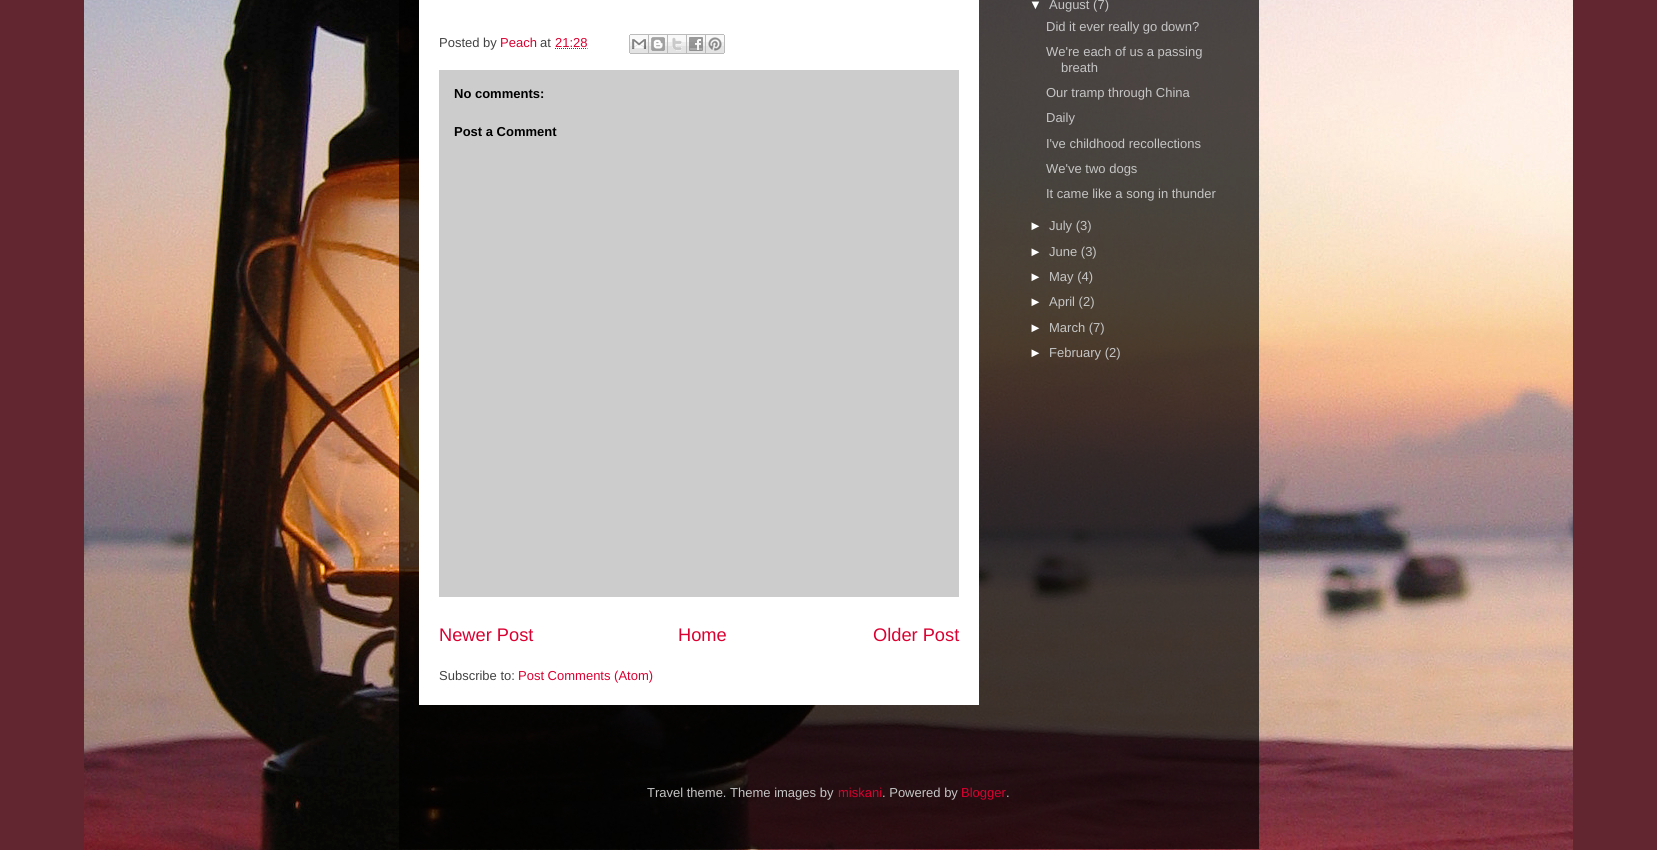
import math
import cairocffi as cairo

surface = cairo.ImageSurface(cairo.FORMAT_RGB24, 1657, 850)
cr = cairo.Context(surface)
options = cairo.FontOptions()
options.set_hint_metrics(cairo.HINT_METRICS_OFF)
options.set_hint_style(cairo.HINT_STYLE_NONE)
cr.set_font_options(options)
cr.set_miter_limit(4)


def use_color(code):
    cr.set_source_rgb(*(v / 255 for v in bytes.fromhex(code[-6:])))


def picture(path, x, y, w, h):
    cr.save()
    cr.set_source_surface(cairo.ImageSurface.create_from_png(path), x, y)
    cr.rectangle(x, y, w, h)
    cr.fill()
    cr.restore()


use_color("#622630")
cr.paint()
picture("img1.png", 84, 0, 1489, 850)
cr.set_source_rgba(0, 0, 0, 0.7)
cr.rectangle(399, 0, 860, 849)
cr.fill()
use_color("#ffffff")
cr.rectangle(419, 0, 560, 705)
cr.fill()
cr.select_font_face("Liberation Sans")
cr.set_font_size(13)
use_color("#424242")
cr.move_to(439, 47)
cr.show_text("Posted by")
use_color("#da0031")
cr.move_to(500, 47)
cr.show_text("Peach")
use_color("#424242")
cr.move_to(540, 47)
cr.show_text("at")
use_color("#da0031")
cr.move_to(555, 47)
cr.show_text("21:28")
cr.new_path()
cr.move_to(555, 48.5)
cr.line_to(587.5, 48.5)
cr.set_line_width(1)
cr.set_dash([1, 1])
cr.stroke()
picture("img2.png", 629, 34, 20, 20)
picture("img3.png", 649, 34, 19, 20)
picture("img4.png", 668, 34, 19, 20)
picture("img5.png", 687, 34, 19, 20)
picture("img6.png", 706, 34, 19, 20)
use_color("#cccccc")
cr.rectangle(439, 70, 520, 527)
cr.fill()
cr.select_font_face("Liberation Sans", cairo.FONT_SLANT_NORMAL, cairo.FONT_WEIGHT_BOLD)
use_color("#000000")
cr.move_to(454, 98)
cr.show_text("No comments:")
cr.move_to(454, 136)
cr.show_text("Post a Comment")
cr.select_font_face("Liberation Sans")
cr.set_font_size(18.25)
use_color("#da0031")
cr.move_to(439, 641)
cr.show_text("Newer Post")
cr.move_to(678, 641)
cr.show_text("Home")
cr.move_to(873, 641)
cr.show_text("Older Post")
cr.set_font_size(13)
use_color("#424242")
cr.move_to(439, 680)
cr.show_text("Subscribe to:")
use_color("#da0031")
cr.move_to(518, 680)
cr.show_text("Post Comments (Atom)")
use_color("#ffffff")
cr.move_to(1029, 9)
cr.show_text("▼")
use_color("#c5c5c5")
cr.move_to(1049, 9)
cr.show_text("August (7)")
cr.move_to(1046, 31)
cr.show_text("Did it ever really go down?")
cr.move_to(1046, 56)
cr.show_text("We're each of us a passing")
cr.move_to(1061, 72)
cr.show_text("breath")
cr.move_to(1046, 97)
cr.show_text("Our tramp through China")
cr.move_to(1046, 122)
cr.show_text("Daily")
cr.move_to(1046, 148)
cr.show_text("I've childhood recollections")
cr.move_to(1046, 173)
cr.show_text("We've two dogs")
cr.move_to(1046, 198)
cr.show_text("It came like a song in thunder")
use_color("#ffffff")
cr.move_to(1029, 230)
cr.show_text("►")
use_color("#c5c5c5")
cr.move_to(1049, 230)
cr.show_text("July (3)")
use_color("#ffffff")
cr.move_to(1029, 256)
cr.show_text("►")
use_color("#c5c5c5")
cr.move_to(1049, 256)
cr.show_text("June (3)")
use_color("#ffffff")
cr.move_to(1029, 281)
cr.show_text("►")
use_color("#c5c5c5")
cr.move_to(1049, 281)
cr.show_text("May (4)")
use_color("#ffffff")
cr.move_to(1029, 306)
cr.show_text("►")
use_color("#c5c5c5")
cr.move_to(1049, 306)
cr.show_text("April (2)")
use_color("#ffffff")
cr.move_to(1029, 332)
cr.show_text("►")
use_color("#c5c5c5")
cr.move_to(1049, 332)
cr.show_text("March (7)")
use_color("#ffffff")
cr.move_to(1029, 357)
cr.show_text("►")
use_color("#c5c5c5")
cr.move_to(1049, 357)
cr.show_text("February (2)")
cr.move_to(647, 797)
cr.show_text("Travel theme. Theme images by")
use_color("#da0031")
cr.move_to(838, 797)
cr.show_text("miskani")
use_color("#c5c5c5")
cr.move_to(882, 797)
cr.show_text(". Powered by")
use_color("#da0031")
cr.move_to(961, 797)
cr.show_text("Blogger")
use_color("#c5c5c5")
cr.move_to(1006, 797)
cr.show_text(".")
surface.write_to_png("result.png")
